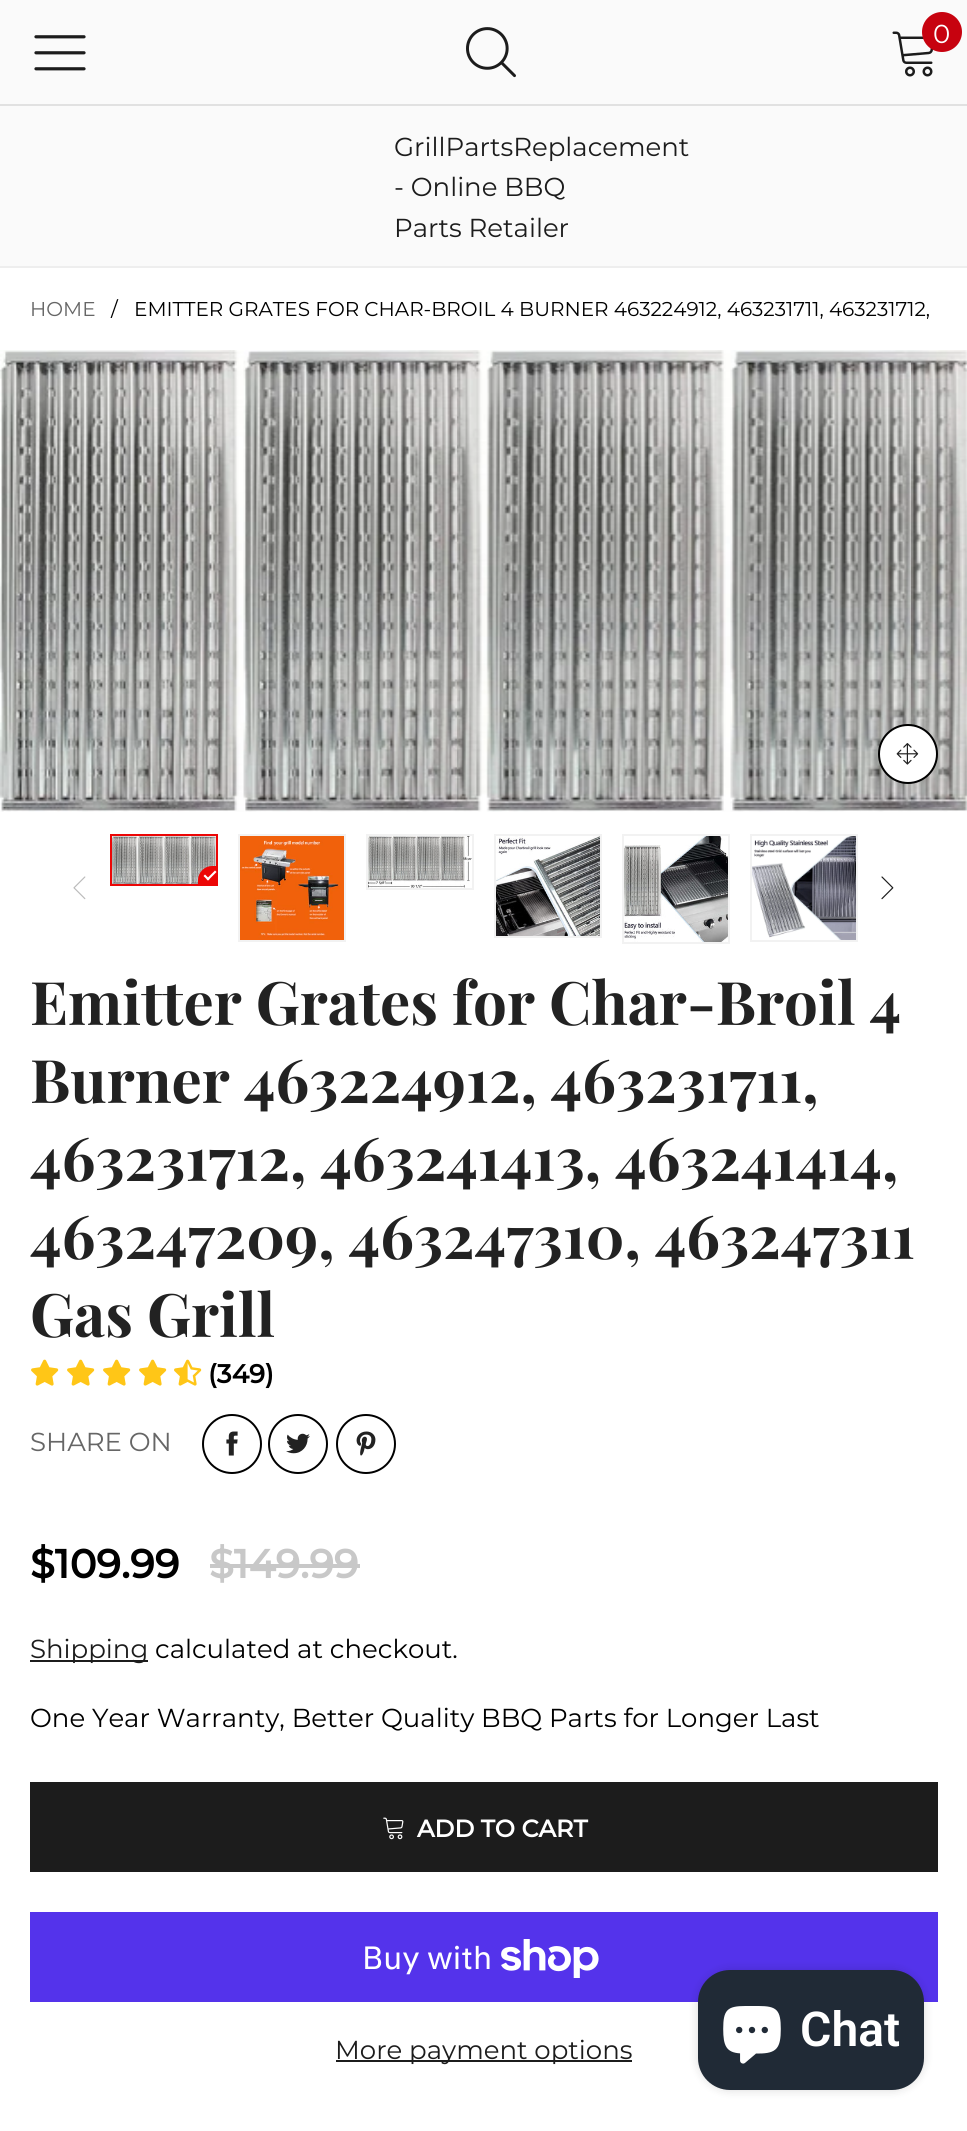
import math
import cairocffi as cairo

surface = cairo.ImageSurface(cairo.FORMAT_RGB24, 967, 2131)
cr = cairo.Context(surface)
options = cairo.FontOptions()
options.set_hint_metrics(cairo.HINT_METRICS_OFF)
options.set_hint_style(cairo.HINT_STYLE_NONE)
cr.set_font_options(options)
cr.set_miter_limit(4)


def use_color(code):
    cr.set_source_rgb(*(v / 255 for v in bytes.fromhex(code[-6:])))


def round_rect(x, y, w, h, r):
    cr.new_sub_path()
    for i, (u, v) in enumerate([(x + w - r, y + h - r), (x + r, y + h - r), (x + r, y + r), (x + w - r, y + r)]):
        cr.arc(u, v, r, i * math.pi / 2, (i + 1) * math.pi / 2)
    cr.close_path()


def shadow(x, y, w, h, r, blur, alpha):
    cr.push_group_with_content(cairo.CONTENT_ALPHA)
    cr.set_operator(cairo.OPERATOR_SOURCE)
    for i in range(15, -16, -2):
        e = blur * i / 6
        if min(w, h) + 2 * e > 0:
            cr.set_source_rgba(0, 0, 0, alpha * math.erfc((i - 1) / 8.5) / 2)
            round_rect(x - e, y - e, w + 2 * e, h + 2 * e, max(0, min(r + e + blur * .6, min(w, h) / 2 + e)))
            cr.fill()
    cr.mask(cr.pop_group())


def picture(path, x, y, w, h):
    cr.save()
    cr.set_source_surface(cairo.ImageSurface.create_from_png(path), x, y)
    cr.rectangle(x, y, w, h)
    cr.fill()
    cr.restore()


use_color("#ffffff")
cr.paint()
use_color("#fafafa")
cr.rectangle(0, 0, 967, 266)
cr.fill()
use_color("#eeeeee")
cr.rectangle(0, 266, 967, 2)
cr.fill()
picture("img1.png", 34, 35, 52, 36)
picture("img2.png", 466, 27, 50, 51)
picture("img3.png", 892, 31, 42, 46)
use_color("#c7020f")
cr.arc(942, 32, 20, 0, 2 * math.pi)
cr.fill()
cr.select_font_face("Montserrat")
cr.set_font_size(26)
use_color("#ffffff")
cr.move_to(933, 43)
cr.show_text("0")
use_color("#e1e1e1")
cr.rectangle(0, 104, 967, 2)
cr.fill()
use_color("#1c1c1c")
cr.move_to(394, 156)
cr.show_text("GrillPartsReplacement")
cr.move_to(394, 196)
cr.show_text("- Online BBQ")
cr.move_to(394, 237)
cr.show_text("Parts Retailer")
cr.set_font_size(20)
use_color("#666666")
cr.move_to(30, 316)
cr.show_text("HOME")
use_color("#000000")
cr.move_to(111, 316)
cr.show_text("/")
cr.move_to(134, 316)
cr.show_text("EMITTER GRATES FOR CHAR-BROIL 4 BURNER 463224912, 463231711, 463231712,")
picture("img4.png", 0, 350, 967, 462)
use_color("#ffffff")
cr.arc(908, 754, 29, 0, 2 * math.pi)
cr.fill_preserve()
use_color("#000000")
cr.stroke()
picture("img5.png", 896, 743, 23, 22)
picture("img6.png", 73, 876, 13, 24)
cr.rectangle(111, 835, 106, 50)
use_color("#ec0606")
cr.stroke()
picture("img7.png", 112, 836, 104, 48)
cr.new_path()
cr.move_to(212, 866)
cr.line_to(218, 866)
cr.line_to(218, 886)
cr.line_to(198, 886)
cr.line_to(198, 880)
cr.curve_to(198, 872.5, 204.5, 866, 212, 866)
cr.close_path()
cr.fill()
use_color("#ffffff")
cr.new_path()
cr.move_to(206.5, 879)
cr.line_to(215, 870.5)
cr.line_to(216.5, 872)
cr.line_to(208, 880.5)
cr.close_path()
cr.fill()
cr.new_path()
cr.move_to(203.5, 876)
cr.line_to(205, 874.5)
cr.line_to(209.5, 879)
cr.line_to(208, 880.5)
cr.close_path()
cr.fill()
cr.rectangle(239, 835, 106, 106)
use_color("#f2f2f2")
cr.stroke()
picture("img8.png", 240, 836, 104, 104)
cr.rectangle(367, 835, 106, 54)
cr.stroke()
picture("img9.png", 368, 836, 104, 52)
cr.rectangle(495, 835, 106, 102)
cr.stroke()
picture("img10.png", 496, 836, 104, 100)
cr.rectangle(623, 835, 106, 108)
cr.stroke()
picture("img11.png", 624, 836, 104, 106)
cr.rectangle(751, 835, 106, 106)
cr.stroke()
picture("img12.png", 752, 836, 104, 104)
picture("img13.png", 881, 876, 13, 24)
cr.select_font_face("Playfair Display", cairo.FONT_SLANT_NORMAL, cairo.FONT_WEIGHT_BOLD)
cr.set_font_size(60)
use_color("#222222")
cr.move_to(30, 1025)
cr.show_text("Emitter Grates for Char-Broil 4")
cr.move_to(30, 1103)
cr.show_text("Burner 463224912, 463231711,")
cr.move_to(30, 1181)
cr.show_text("463231712, 463241413, 463241414,")
cr.move_to(30, 1259)
cr.show_text("463247209, 463247310, 463247311")
cr.move_to(30, 1337)
cr.show_text("Gas Grill")
picture("img14.png", 31, 1359, 28, 27)
picture("img14.png", 67, 1359, 28, 27)
picture("img14.png", 103, 1359, 28, 27)
picture("img14.png", 139, 1359, 28, 27)
picture("img15.png", 174, 1359, 28, 27)
cr.select_font_face("Montserrat", cairo.FONT_SLANT_NORMAL, cairo.FONT_WEIGHT_BOLD)
cr.set_font_size(26)
use_color("#000000")
cr.move_to(208, 1383)
cr.show_text("(349)")
cr.select_font_face("Montserrat")
use_color("#666666")
cr.move_to(30, 1451)
cr.show_text("SHARE ON")
cr.new_path()
cr.arc(232, 1444, 29, 0, 2 * math.pi)
use_color("#000000")
cr.stroke()
picture("img16.png", 226, 1431, 12, 25)
cr.arc(298, 1444, 29, 0, 2 * math.pi)
cr.stroke()
picture("img17.png", 286, 1433, 24, 21)
cr.arc(366, 1444, 29, 0, 2 * math.pi)
cr.stroke()
picture("img18.png", 356, 1431, 20, 25)
cr.select_font_face("Montserrat", cairo.FONT_SLANT_NORMAL, cairo.FONT_WEIGHT_BOLD)
cr.set_font_size(40)
cr.move_to(30, 1578)
cr.show_text("$109.99")
use_color("#c8c8c8")
cr.move_to(209, 1578)
cr.show_text("$149.99")
cr.rectangle(210, 1564, 150, 4)
cr.fill()
use_color("#1c1c1c")
cr.rectangle(30, 1660, 118, 2)
cr.fill()
cr.select_font_face("Montserrat")
cr.set_font_size(26)
cr.move_to(30, 1658)
cr.show_text("Shipping")
use_color("#000000")
cr.move_to(155, 1658)
cr.show_text("calculated at checkout.")
cr.move_to(30, 1727)
cr.show_text("One Year Warranty, Better Quality BBQ Parts for Longer Last")
use_color("#1c1c1c")
cr.rectangle(30, 1782, 908, 90)
cr.fill()
picture("img19.png", 383, 1817, 21, 23)
cr.select_font_face("Montserrat", cairo.FONT_SLANT_NORMAL, cairo.FONT_WEIGHT_BOLD)
cr.set_font_size(24)
use_color("#ffffff")
cr.move_to(417, 1837)
cr.show_text("ADD TO CART")
use_color("#5433eb")
cr.rectangle(30, 1912, 908, 90)
cr.fill()
cr.select_font_face("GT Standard")
cr.set_font_size(32)
use_color("#ffffff")
cr.move_to(362, 1969)
cr.show_text("Buy with")
picture("img20.png", 501, 1939, 98, 39)
use_color("#1c1c1c")
cr.rectangle(336, 2060, 296, 2)
cr.fill()
cr.select_font_face("Montserrat")
cr.set_font_size(26)
cr.move_to(335, 2059)
cr.show_text("More payment options")
use_color("#000000")
shadow(698, 1970, 226, 120, 32, 5, 0.15)
use_color("#202a36")
round_rect(698, 1970, 226, 120, 32)
cr.fill()
picture("img21.png", 723, 2006, 58, 58)
cr.select_font_face("Roboto SemiBold")
cr.set_font_size(48)
use_color("#ffffff")
cr.move_to(800, 2046)
cr.show_text("Chat")
surface.write_to_png("result.png")
